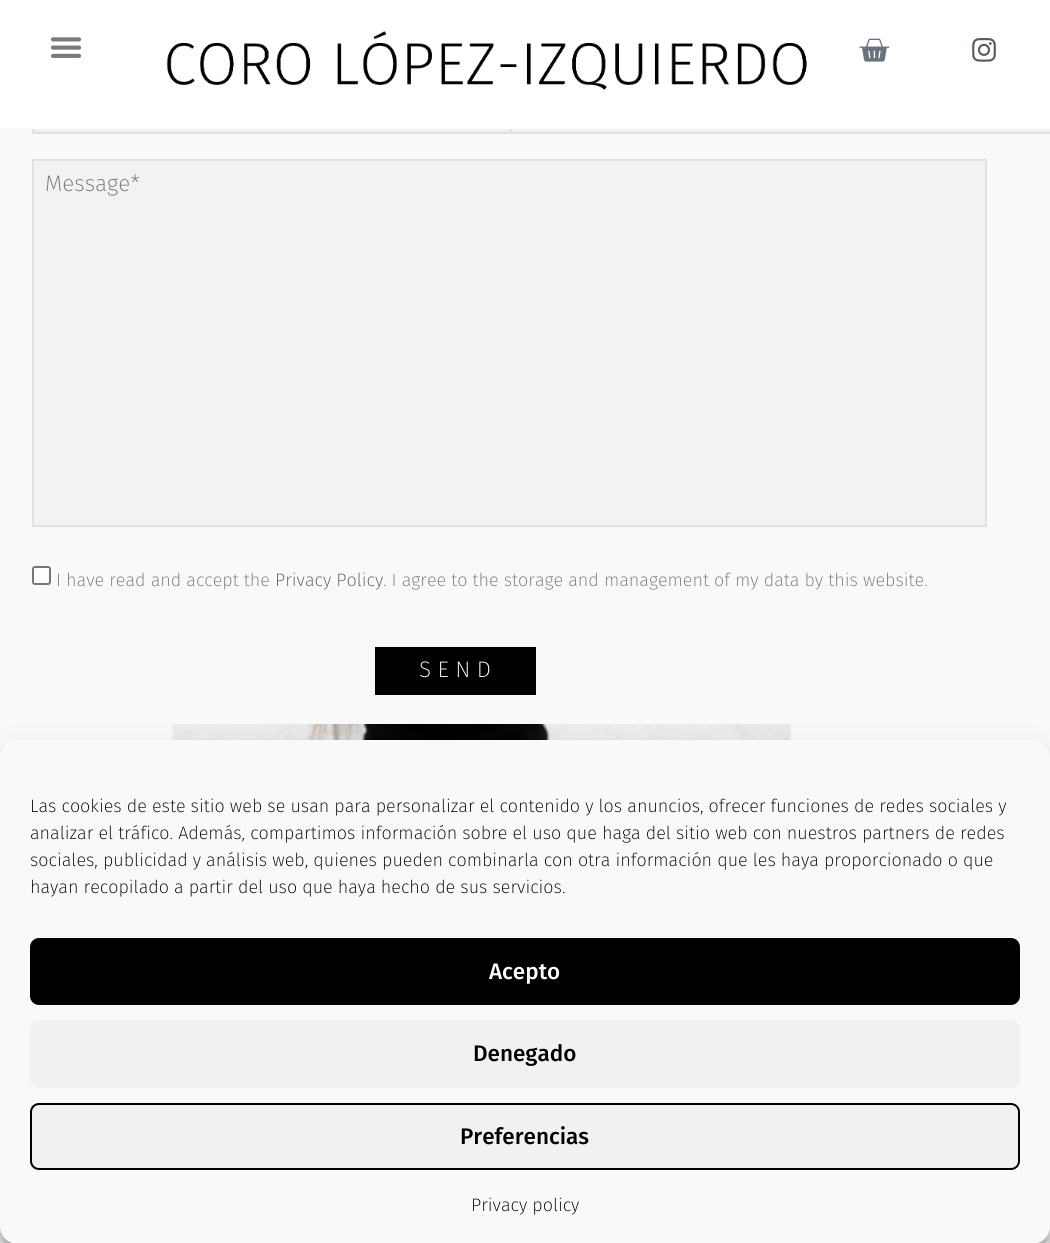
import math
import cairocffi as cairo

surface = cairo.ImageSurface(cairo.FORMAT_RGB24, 1050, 1243)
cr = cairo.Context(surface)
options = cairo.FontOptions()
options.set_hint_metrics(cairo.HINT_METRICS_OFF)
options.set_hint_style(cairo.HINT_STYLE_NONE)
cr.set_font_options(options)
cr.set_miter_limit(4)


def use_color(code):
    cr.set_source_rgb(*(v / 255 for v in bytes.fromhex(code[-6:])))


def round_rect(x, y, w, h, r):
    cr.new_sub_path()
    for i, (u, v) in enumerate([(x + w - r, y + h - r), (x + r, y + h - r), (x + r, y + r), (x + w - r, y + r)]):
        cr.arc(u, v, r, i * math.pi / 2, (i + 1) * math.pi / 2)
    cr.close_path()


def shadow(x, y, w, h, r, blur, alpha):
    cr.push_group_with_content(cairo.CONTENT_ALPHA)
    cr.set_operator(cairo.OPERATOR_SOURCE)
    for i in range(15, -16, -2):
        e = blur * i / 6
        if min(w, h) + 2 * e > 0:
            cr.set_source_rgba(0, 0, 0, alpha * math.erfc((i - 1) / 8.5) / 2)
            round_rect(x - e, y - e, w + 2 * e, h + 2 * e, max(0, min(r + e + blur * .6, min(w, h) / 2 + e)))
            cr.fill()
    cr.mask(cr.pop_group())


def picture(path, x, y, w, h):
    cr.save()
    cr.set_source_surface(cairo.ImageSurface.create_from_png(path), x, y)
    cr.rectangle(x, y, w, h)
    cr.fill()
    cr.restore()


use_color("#f9f9f9")
cr.paint()
use_color("#f2f2f2")
cr.rectangle(34, 129, 476, 3)
cr.fill()
cr.rectangle(33, 78, 548, 55)
use_color("#e0e0e0")
cr.stroke()
use_color("#f2f2f2")
cr.rectangle(512, 129, 538, 3)
cr.fill()
cr.rectangle(511, 78, 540, 55)
use_color("#e0e0e0")
cr.stroke()
use_color("#ffffff")
cr.rectangle(0, 0, 1050, 129)
cr.fill()
picture("img1.png", 50, 37, 32, 21)
picture("img2.png", 166, 31, 641, 59)
picture("img3.png", 859, 38, 31, 24)
picture("img4.png", 972, 38, 24, 24)
use_color("#f2f2f2")
cr.rectangle(33, 160, 953, 366)
cr.fill_preserve()
use_color("#e0e0e0")
cr.stroke()
cr.select_font_face("Fira Sans ExtraLight")
cr.set_font_size(22.5)
use_color("#757575")
cr.move_to(45, 191)
cr.show_text("Message*")
use_color("#ffffff")
round_rect(33, 567, 17, 17, 2)
cr.fill_preserve()
use_color("#767676")
cr.stroke()
cr.set_font_size(18)
use_color("#757575")
cr.move_to(56, 586)
cr.show_text("I have read and accept the")
use_color("#54595f")
cr.move_to(275, 586)
cr.show_text("Privacy Policy")
use_color("#757575")
cr.move_to(383, 586)
cr.show_text(". I agree to the storage and management of my data by this website.")
use_color("#000000")
cr.rectangle(375, 647, 161, 48)
cr.fill()
cr.set_font_size(22.5)
use_color("#ffffff")
cr.move_to(419, 677)
cr.show_text("S E N D")
picture("img5.png", 172, 724, 619, 16)
use_color("#000000")
shadow(0, 749, 1050, 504, 18, 4.5, 0.23)
shadow(0, 755, 1050, 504, 18, 15, 0.19)
use_color("#f9f9f9")
round_rect(0, 740, 1050, 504, 18)
cr.fill()
cr.set_font_size(18)
use_color("#000000")
cr.move_to(30, 812)
cr.show_text("Las cookies de este sitio web se usan para personalizar el contenido y los anuncios, ofrecer funciones de redes sociales y")
cr.move_to(30, 839)
cr.show_text("analizar el tráfico. Además, compartimos información sobre el uso que haga del sitio web con nuestros partners de redes")
cr.move_to(30, 866)
cr.show_text("sociales, publicidad y análisis web, quienes pueden combinarla con otra información que les haya proporcionado o que")
cr.move_to(30, 893)
cr.show_text("hayan recopilado a partir del uso que haya hecho de sus servicios.")
round_rect(31, 939, 988, 65, 8)
cr.fill_preserve()
cr.stroke()
cr.select_font_face("Fira Sans Medium")
cr.set_font_size(22.5)
use_color("#ffffff")
cr.move_to(489, 979)
cr.show_text("Acepto")
use_color("#f1f1f1")
round_rect(30, 1020, 990, 68, 9)
cr.fill()
use_color("#000000")
cr.move_to(473, 1061)
cr.show_text("Denegado")
use_color("#f1f1f1")
round_rect(31, 1104, 988, 65, 8)
cr.fill_preserve()
use_color("#000000")
cr.stroke()
cr.move_to(460, 1144)
cr.show_text("Preferencias")
cr.select_font_face("Fira Sans ExtraLight")
cr.set_font_size(18)
cr.move_to(471, 1211)
cr.show_text("Privacy policy")
surface.write_to_png("result.png")
